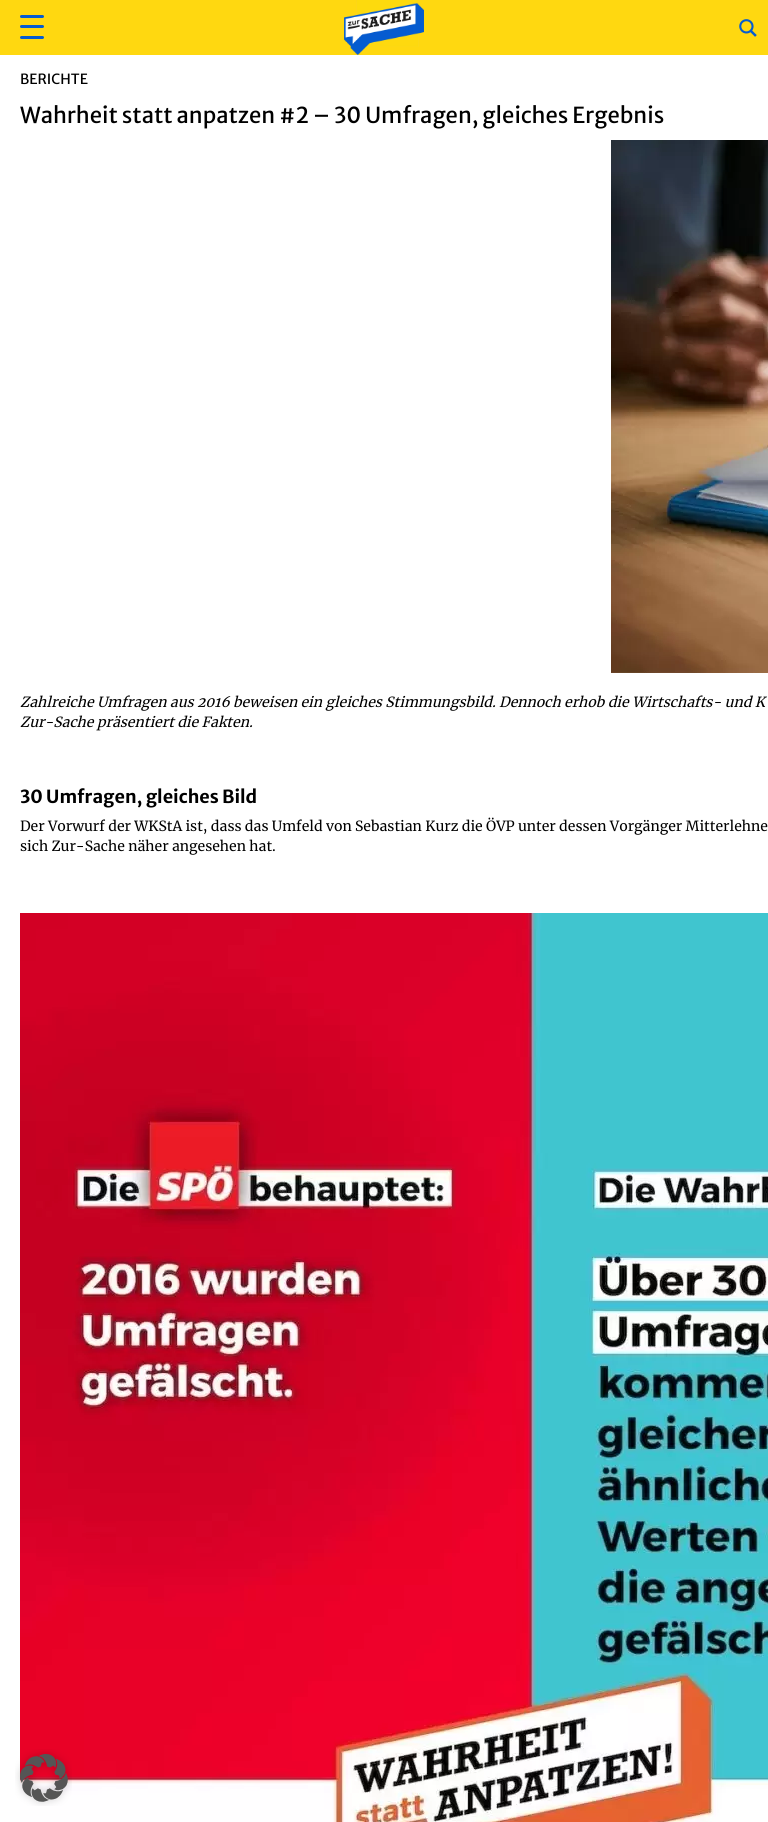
import math
import cairocffi as cairo

surface = cairo.ImageSurface(cairo.FORMAT_RGB24, 768, 1822)
cr = cairo.Context(surface)
options = cairo.FontOptions()
options.set_hint_metrics(cairo.HINT_METRICS_OFF)
options.set_hint_style(cairo.HINT_STYLE_NONE)
cr.set_font_options(options)
cr.set_miter_limit(4)


def use_color(code):
    cr.set_source_rgb(*(v / 255 for v in bytes.fromhex(code[-6:])))


def round_rect(x, y, w, h, r):
    cr.new_sub_path()
    for i, (u, v) in enumerate([(x + w - r, y + h - r), (x + r, y + h - r), (x + r, y + r), (x + w - r, y + r)]):
        cr.arc(u, v, r, i * math.pi / 2, (i + 1) * math.pi / 2)
    cr.close_path()


def picture(path, x, y, w, h):
    cr.save()
    cr.set_source_surface(cairo.ImageSurface.create_from_png(path), x, y)
    cr.rectangle(x, y, w, h)
    cr.fill()
    cr.restore()


use_color("#ffffff")
cr.paint()
use_color("#ffd810")
cr.rectangle(0, 0, 768, 55)
cr.fill()
use_color("#055cd0")
round_rect(20, 25, 24, 3, 1.5)
cr.fill()
round_rect(20, 15, 24, 3, 1.5)
cr.fill()
round_rect(20, 36, 24, 3, 1.5)
cr.fill()
picture("img1.png", 344, 0, 80, 55)
picture("img2.png", 739, 19, 18, 18)
cr.select_font_face("Merriweather Sans")
cr.set_font_size(14)
use_color("#000000")
cr.move_to(20, 84)
cr.show_text("BERICHTE")
cr.set_font_size(22)
cr.move_to(20, 123)
cr.show_text("Wahrheit statt anpatzen #2 – 30 Umfragen, gleiches Ergebnis")
picture("img3.png", 611, 140, 157, 533)
cr.select_font_face("Merriweather", cairo.FONT_SLANT_ITALIC)
cr.set_font_size(14)
cr.move_to(20, 707)
cr.show_text("Zahlreiche Umfragen aus 2016 beweisen ein gleiches Stimmungsbild. Dennoch erhob die Wirtschafts- und K")
cr.move_to(20, 727)
cr.show_text("Zur-Sache präsentiert die Fakten.")
cr.select_font_face("Merriweather Sans", cairo.FONT_SLANT_NORMAL, cairo.FONT_WEIGHT_BOLD)
cr.set_font_size(18)
cr.move_to(20, 803)
cr.show_text("30 Umfragen, gleiches Bild")
cr.select_font_face("Merriweather")
cr.set_font_size(14)
cr.move_to(20, 831)
cr.show_text("Der Vorwurf der WKStA ist, dass das Umfeld von Sebastian Kurz die ÖVP unter dessen Vorgänger Mitterlehne")
cr.move_to(20, 851)
cr.show_text("sich Zur-Sache näher angesehen hat.")
picture("img4.png", 20, 913, 748, 909)
picture("img5.png", 15, 1749, 57, 57)
surface.write_to_png("result.png")
